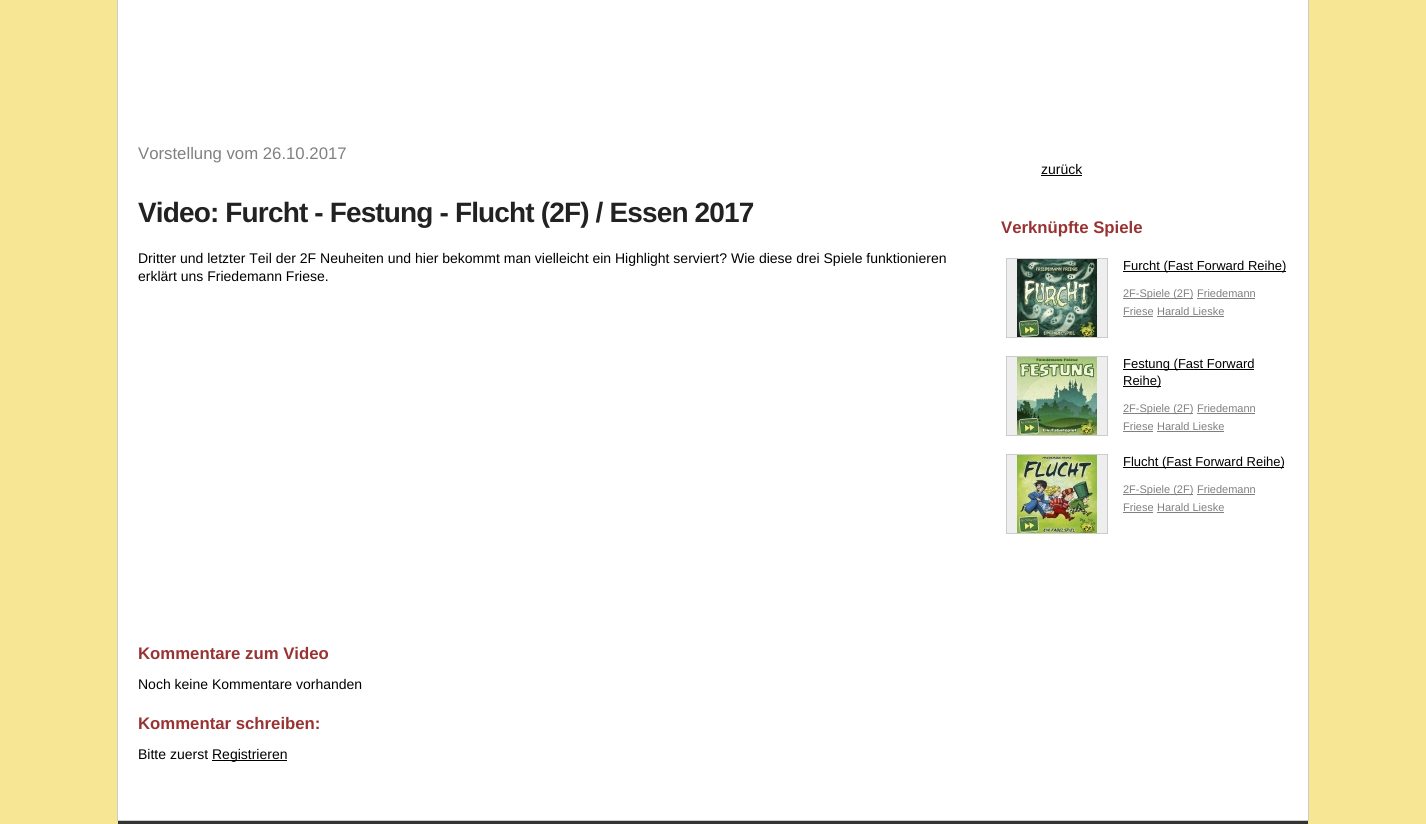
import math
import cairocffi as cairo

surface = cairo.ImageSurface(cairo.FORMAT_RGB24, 1426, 824)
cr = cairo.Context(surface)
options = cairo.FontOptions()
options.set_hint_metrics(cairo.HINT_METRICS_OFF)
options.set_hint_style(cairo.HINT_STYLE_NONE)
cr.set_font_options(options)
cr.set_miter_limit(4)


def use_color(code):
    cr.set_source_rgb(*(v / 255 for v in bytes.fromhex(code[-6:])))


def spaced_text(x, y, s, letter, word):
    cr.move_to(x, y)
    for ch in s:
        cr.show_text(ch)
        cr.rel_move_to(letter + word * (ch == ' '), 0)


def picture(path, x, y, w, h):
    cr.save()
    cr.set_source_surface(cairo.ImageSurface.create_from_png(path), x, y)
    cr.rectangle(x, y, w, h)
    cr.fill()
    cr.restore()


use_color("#f7e694")
cr.paint()
use_color("#ffffff")
cr.rectangle(118, 0, 1190, 820)
cr.fill()
use_color("#cccccc")
cr.rectangle(1308, 0, 1, 821)
cr.fill()
cr.rectangle(117, 820, 1192, 1)
cr.fill()
cr.rectangle(117, 0, 1, 821)
cr.fill()
cr.select_font_face("Liberation Sans")
cr.set_font_size(16.75)
use_color("#808080")
cr.move_to(138, 159)
cr.show_text("Vorstellung vom 26.10.2017")
cr.select_font_face("Liberation Sans", cairo.FONT_SLANT_NORMAL, cairo.FONT_WEIGHT_BOLD)
cr.set_font_size(28)
use_color("#222222")
spaced_text(138, 222, "Video: Furcht - Festung - Flucht (2F) / Essen 2017", -0.85, 0)
cr.select_font_face("Liberation Sans")
cr.set_font_size(14)
use_color("#000000")
cr.move_to(138, 263)
cr.show_text("Dritter und letzter Teil der 2F Neuheiten und hier bekommt man vielleicht ein Highlight serviert? Wie diese drei Spiele funktionieren")
cr.move_to(138, 281)
cr.show_text("erklärt uns Friedemann Friese.")
cr.select_font_face("Liberation Sans", cairo.FONT_SLANT_NORMAL, cairo.FONT_WEIGHT_BOLD)
cr.set_font_size(16.75)
use_color("#993333")
cr.move_to(138, 659)
cr.show_text("Kommentare zum Video")
cr.select_font_face("Liberation Sans")
cr.set_font_size(14)
use_color("#000000")
cr.move_to(138, 689)
cr.show_text("Noch keine Kommentare vorhanden")
cr.select_font_face("Liberation Sans", cairo.FONT_SLANT_NORMAL, cairo.FONT_WEIGHT_BOLD)
cr.set_font_size(16.75)
use_color("#993333")
cr.move_to(138, 729)
cr.show_text("Kommentar schreiben:")
cr.select_font_face("Liberation Sans")
cr.set_font_size(14)
use_color("#000000")
cr.move_to(138, 759)
cr.show_text("Bitte zuerst")
cr.rectangle(212, 760, 75, 1)
cr.fill()
cr.move_to(212, 759)
cr.show_text("Registrieren")
cr.move_to(1041, 174)
cr.show_text("zurück")
cr.rectangle(1041, 175, 41, 1)
cr.fill()
cr.select_font_face("Liberation Sans", cairo.FONT_SLANT_NORMAL, cairo.FONT_WEIGHT_BOLD)
cr.set_font_size(16.75)
use_color("#993333")
cr.move_to(1001, 233)
cr.show_text("Verknüpfte Spiele")
use_color("#eeeeee")
cr.rectangle(1006.5, 258.5, 101, 79)
cr.fill_preserve()
use_color("#cccccc")
cr.set_line_width(1)
cr.stroke()
picture("img1.png", 1017, 259, 80, 78)
use_color("#000000")
cr.rectangle(1123, 271, 163, 1)
cr.fill()
cr.select_font_face("Liberation Sans")
cr.set_font_size(13)
cr.move_to(1123, 270)
cr.show_text("Furcht (Fast Forward Reihe)")
use_color("#808080")
cr.rectangle(1123, 298, 70, 1)
cr.fill()
cr.set_font_size(11)
cr.move_to(1123, 297)
cr.show_text("2F-Spiele (2F)")
cr.move_to(1197, 297)
cr.show_text("Friedemann")
cr.rectangle(1197, 298, 58, 1)
cr.fill()
cr.move_to(1123, 315)
cr.show_text("Friese")
cr.rectangle(1123, 316, 30, 1)
cr.fill()
cr.move_to(1157, 315)
cr.show_text("Harald Lieske")
cr.rectangle(1157, 316, 67, 1)
cr.fill()
use_color("#eeeeee")
cr.rectangle(1006.5, 356.5, 101, 79)
cr.fill_preserve()
use_color("#cccccc")
cr.stroke()
picture("img2.png", 1017, 357, 80, 78)
use_color("#000000")
cr.rectangle(1123, 369, 131, 1)
cr.fill()
cr.set_font_size(13)
cr.move_to(1123, 368)
cr.show_text("Festung (Fast Forward")
cr.rectangle(1123, 386, 38, 1)
cr.fill()
cr.move_to(1123, 385)
cr.show_text("Reihe)")
use_color("#808080")
cr.rectangle(1123, 413, 70, 1)
cr.fill()
cr.set_font_size(11)
cr.move_to(1123, 412)
cr.show_text("2F-Spiele (2F)")
cr.move_to(1197, 412)
cr.show_text("Friedemann")
cr.rectangle(1197, 413, 58, 1)
cr.fill()
cr.move_to(1123, 430)
cr.show_text("Friese")
cr.rectangle(1123, 431, 30, 1)
cr.fill()
cr.move_to(1157, 430)
cr.show_text("Harald Lieske")
cr.rectangle(1157, 431, 67, 1)
cr.fill()
use_color("#eeeeee")
cr.rectangle(1006.5, 454.5, 101, 79)
cr.fill_preserve()
use_color("#cccccc")
cr.stroke()
picture("img3.png", 1017, 455, 80, 78)
use_color("#000000")
cr.rectangle(1123, 467, 161, 1)
cr.fill()
cr.set_font_size(13)
cr.move_to(1123, 466)
cr.show_text("Flucht (Fast Forward Reihe)")
use_color("#808080")
cr.rectangle(1123, 494, 70, 1)
cr.fill()
cr.set_font_size(11)
cr.move_to(1123, 493)
cr.show_text("2F-Spiele (2F)")
cr.move_to(1197, 493)
cr.show_text("Friedemann")
cr.rectangle(1197, 494, 58, 1)
cr.fill()
cr.move_to(1123, 511)
cr.show_text("Friese")
cr.rectangle(1123, 512, 30, 1)
cr.fill()
cr.move_to(1157, 511)
cr.show_text("Harald Lieske")
cr.rectangle(1157, 512, 67, 1)
cr.fill()
use_color("#333333")
cr.rectangle(118, 821, 1190, 3)
cr.fill()
surface.write_to_png("result.png")
